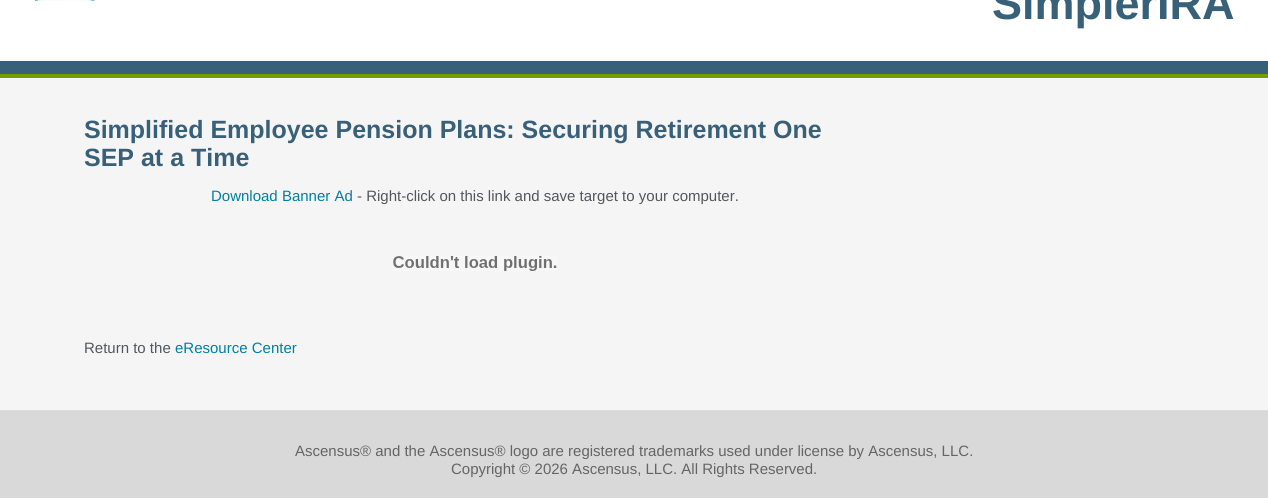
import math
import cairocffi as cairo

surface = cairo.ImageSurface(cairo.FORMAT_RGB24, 1268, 498)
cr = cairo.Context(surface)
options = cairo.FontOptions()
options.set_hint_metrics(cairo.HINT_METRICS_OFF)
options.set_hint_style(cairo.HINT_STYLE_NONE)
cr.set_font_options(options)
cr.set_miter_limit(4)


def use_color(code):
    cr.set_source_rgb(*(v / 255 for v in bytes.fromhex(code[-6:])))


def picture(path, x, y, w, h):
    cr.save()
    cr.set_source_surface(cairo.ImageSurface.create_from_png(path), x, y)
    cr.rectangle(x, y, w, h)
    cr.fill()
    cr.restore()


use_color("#ffffff")
cr.paint()
use_color("#396079")
cr.rectangle(0, 61, 1268, 13)
cr.fill()
picture("img1.png", 35, 0, 63, 1)
cr.select_font_face("Liberation Sans", cairo.FONT_SLANT_NORMAL, cairo.FONT_WEIGHT_BOLD)
cr.set_font_size(45)
cr.move_to(992, 19)
cr.show_text("SimplerIRA")
use_color("#7a9a01")
cr.rectangle(0, 74, 1268, 4)
cr.fill()
use_color("#f5f5f5")
cr.rectangle(0, 78, 1268, 332)
cr.fill()
cr.set_font_size(25)
use_color("#396079")
cr.move_to(84, 138)
cr.show_text("Simplified Employee Pension Plans: Securing Retirement One")
cr.move_to(84, 166)
cr.show_text("SEP at a Time")
cr.select_font_face("Liberation Sans")
cr.set_font_size(15)
use_color("#007fa3")
cr.move_to(211, 201)
cr.show_text("Download Banner Ad")
use_color("#53565a")
cr.move_to(357, 201)
cr.show_text("- Right-click on this link and save target to your computer.")
picture("img2.png", 393, 256, 164, 15)
cr.move_to(84, 353)
cr.show_text("Return to the")
use_color("#007fa3")
cr.move_to(175, 353)
cr.show_text("eResource Center")
use_color("#d9d9d9")
cr.rectangle(0, 411, 1268, 87)
cr.fill()
use_color("#dddddd")
cr.rectangle(0, 410, 1268, 1)
cr.fill()
use_color("#656565")
cr.move_to(295, 456)
cr.show_text("Ascensus® and the Ascensus® logo are registered trademarks used under license by Ascensus, LLC.")
cr.move_to(451, 474)
cr.show_text("Copyright © 2026 Ascensus, LLC. All Rights Reserved.")
surface.write_to_png("result.png")
